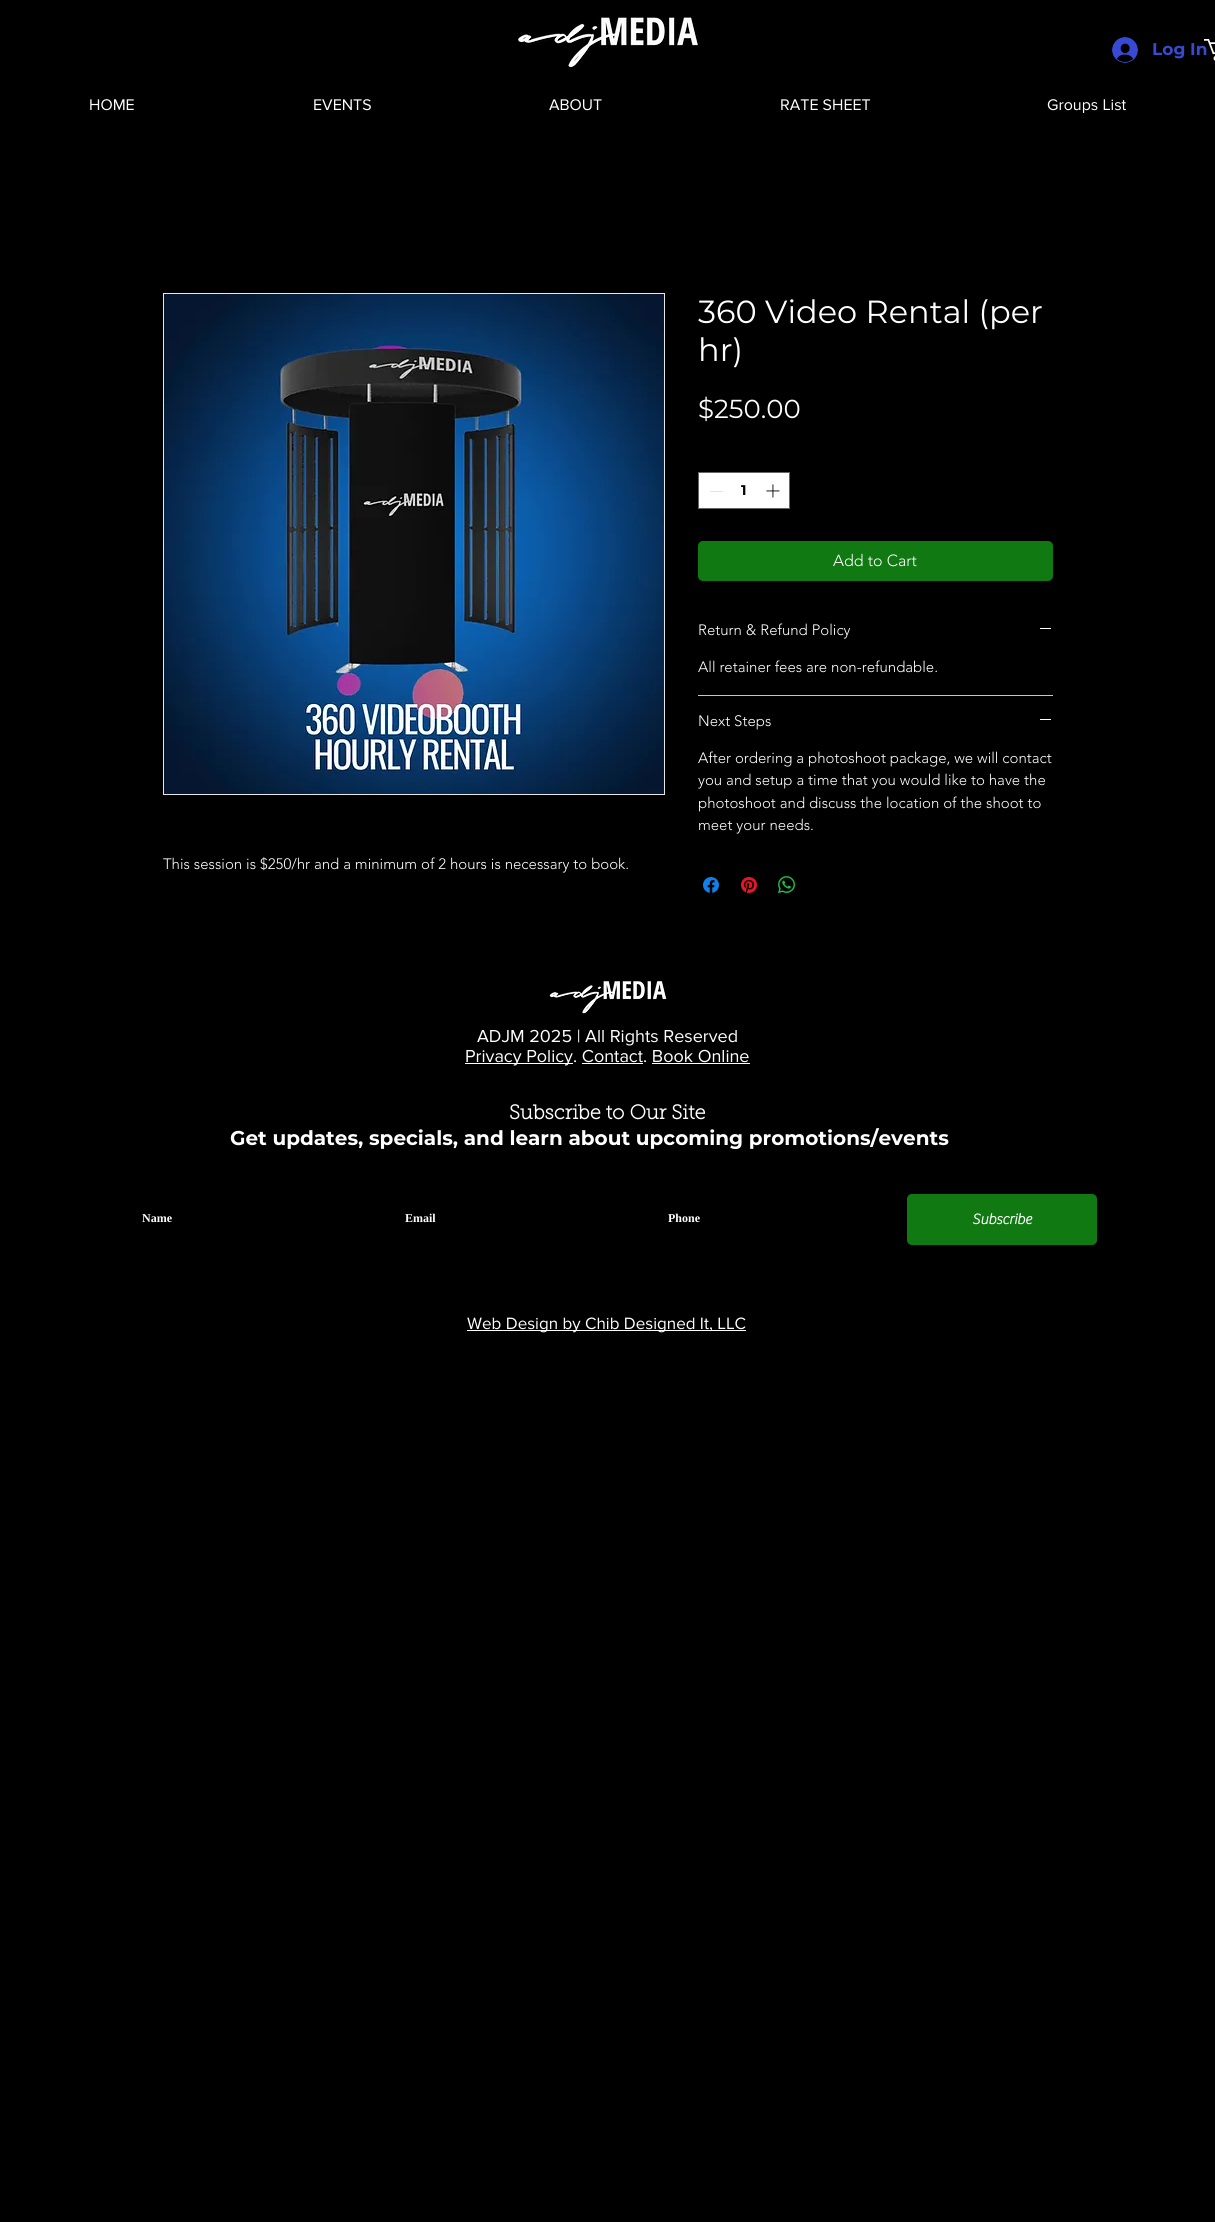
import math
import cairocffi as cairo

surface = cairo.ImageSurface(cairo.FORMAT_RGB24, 1215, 2222)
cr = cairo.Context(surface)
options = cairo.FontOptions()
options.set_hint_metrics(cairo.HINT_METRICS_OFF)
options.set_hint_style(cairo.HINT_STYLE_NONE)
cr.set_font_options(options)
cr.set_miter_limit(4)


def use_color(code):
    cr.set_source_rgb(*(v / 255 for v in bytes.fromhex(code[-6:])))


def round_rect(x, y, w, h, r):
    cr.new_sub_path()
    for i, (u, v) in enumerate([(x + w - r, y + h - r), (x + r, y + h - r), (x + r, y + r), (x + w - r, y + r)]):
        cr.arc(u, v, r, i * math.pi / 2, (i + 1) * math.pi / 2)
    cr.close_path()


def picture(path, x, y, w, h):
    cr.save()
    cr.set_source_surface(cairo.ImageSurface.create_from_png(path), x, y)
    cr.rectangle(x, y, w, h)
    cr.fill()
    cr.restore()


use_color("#000000")
cr.paint()
picture("img1.png", 518, 17, 182, 52)
picture("img2.png", 1112, 37, 26, 26)
cr.select_font_face("Montserrat", cairo.FONT_SLANT_NORMAL, cairo.FONT_WEIGHT_BOLD)
cr.set_font_size(17)
use_color("#384ad3")
cr.move_to(1152, 55)
cr.show_text("Log In")
picture("img3.png", 1204, 39, 11, 22)
cr.select_font_face("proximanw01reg")
cr.set_font_size(16)
use_color("#ffffff")
cr.move_to(89, 110)
cr.show_text("HOME")
cr.move_to(313, 110)
cr.show_text("EVENTS")
cr.move_to(549, 110)
cr.show_text("ABOUT")
cr.move_to(780, 110)
cr.show_text("RATE SHEET")
cr.move_to(1047, 110)
cr.show_text("Groups List")
cr.select_font_face("Montserrat")
cr.set_font_size(32)
cr.move_to(698, 323)
cr.show_text("360 Video Rental (per")
cr.move_to(698, 361)
cr.show_text("hr)")
cr.set_font_size(26)
cr.move_to(698, 418)
cr.show_text("$250.00")
cr.rectangle(698.5, 472.5, 91, 36)
cr.fill_preserve()
use_color("#666666")
cr.set_line_width(1)
cr.stroke()
use_color("#e3e3e3")
cr.rectangle(710, 491, 13, 1)
cr.fill()
cr.select_font_face("Montserrat", cairo.FONT_SLANT_NORMAL, cairo.FONT_WEIGHT_BOLD)
cr.set_font_size(14)
use_color("#000000")
cr.move_to(741, 495)
cr.show_text("1")
picture("img4.png", 766, 484, 14, 14)
use_color("#117912")
round_rect(698, 541, 355, 40, 5)
cr.fill()
cr.select_font_face("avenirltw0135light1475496 Light")
cr.set_font_size(16)
use_color("#ffffff")
cr.move_to(833, 566)
cr.show_text("Add to Cart")
use_color("#c7c7c7")
cr.rectangle(698, 695, 355, 1)
cr.fill()
cr.set_font_size(15)
use_color("#ffffff")
cr.move_to(698, 635)
cr.show_text("Return & Refund Policy")
cr.rectangle(1040, 628, 11, 1)
cr.fill()
cr.move_to(698, 672)
cr.show_text("All retainer fees are non-refundable.")
cr.move_to(698, 726)
cr.show_text("Next Steps")
cr.rectangle(1040, 719, 11, 1)
cr.fill()
cr.move_to(698, 763)
cr.show_text("After ordering a photoshoot package, we will contact")
cr.move_to(698, 785)
cr.show_text("you and setup a time that you would like to have the")
cr.move_to(698, 808)
cr.show_text("photoshoot and discuss the location of the shoot to")
cr.move_to(698, 830)
cr.show_text("meet your needs.")
picture("img5.png", 703, 877, 16, 16)
picture("img6.png", 741, 877, 16, 16)
picture("img7.png", 778, 876, 17, 17)
cr.rectangle(163.5, 293.5, 501, 501)
use_color("#e8e6e6")
cr.stroke()
picture("img8.png", 164, 294, 500, 500)
use_color("#ffffff")
cr.move_to(163, 869)
cr.show_text("This session is $250/hr and a minimum of 2 hours is necessary to book.")
picture("img9.png", 549, 981, 119, 33)
cr.select_font_face("proximanw01reg")
cr.set_font_size(18)
cr.move_to(477, 1042)
cr.show_text("ADJM 2025 | All Rights Reserved")
cr.rectangle(465, 1063, 108, 1)
cr.fill()
cr.move_to(465, 1062)
cr.show_text("Privacy Policy. Contact. Book Online")
cr.rectangle(582, 1063, 61, 1)
cr.fill()
cr.rectangle(652, 1063, 98, 1)
cr.fill()
cr.select_font_face("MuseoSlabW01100", cairo.FONT_SLANT_NORMAL, cairo.FONT_WEIGHT_BOLD)
cr.set_font_size(20)
cr.move_to(509, 1119)
cr.show_text("Subscribe to Our Site")
cr.select_font_face("Montserrat", cairo.FONT_SLANT_NORMAL, cairo.FONT_WEIGHT_BOLD)
cr.move_to(230, 1145)
cr.show_text("Get updates, specials, and learn about upcoming promotions/events")
cr.select_font_face("Liberation Serif", cairo.FONT_SLANT_NORMAL, cairo.FONT_WEIGHT_BOLD)
cr.set_font_size(12)
cr.move_to(142, 1222)
cr.show_text("Name")
cr.move_to(405, 1222)
cr.show_text("Email")
cr.move_to(668, 1222)
cr.show_text("Phone")
use_color("#117912")
round_rect(907, 1194, 190, 51, 5)
cr.fill()
cr.select_font_face("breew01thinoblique", cairo.FONT_SLANT_NORMAL, cairo.FONT_WEIGHT_BOLD)
cr.set_font_size(15)
use_color("#ffffff")
cr.move_to(972, 1224)
cr.show_text("Subscribe")
cr.rectangle(467, 1330, 279, 1)
cr.fill()
cr.select_font_face("proximanw01reg")
cr.set_font_size(17)
cr.move_to(467, 1329)
cr.show_text("Web Design by Chib Designed It, LLC")
surface.write_to_png("result.png")
